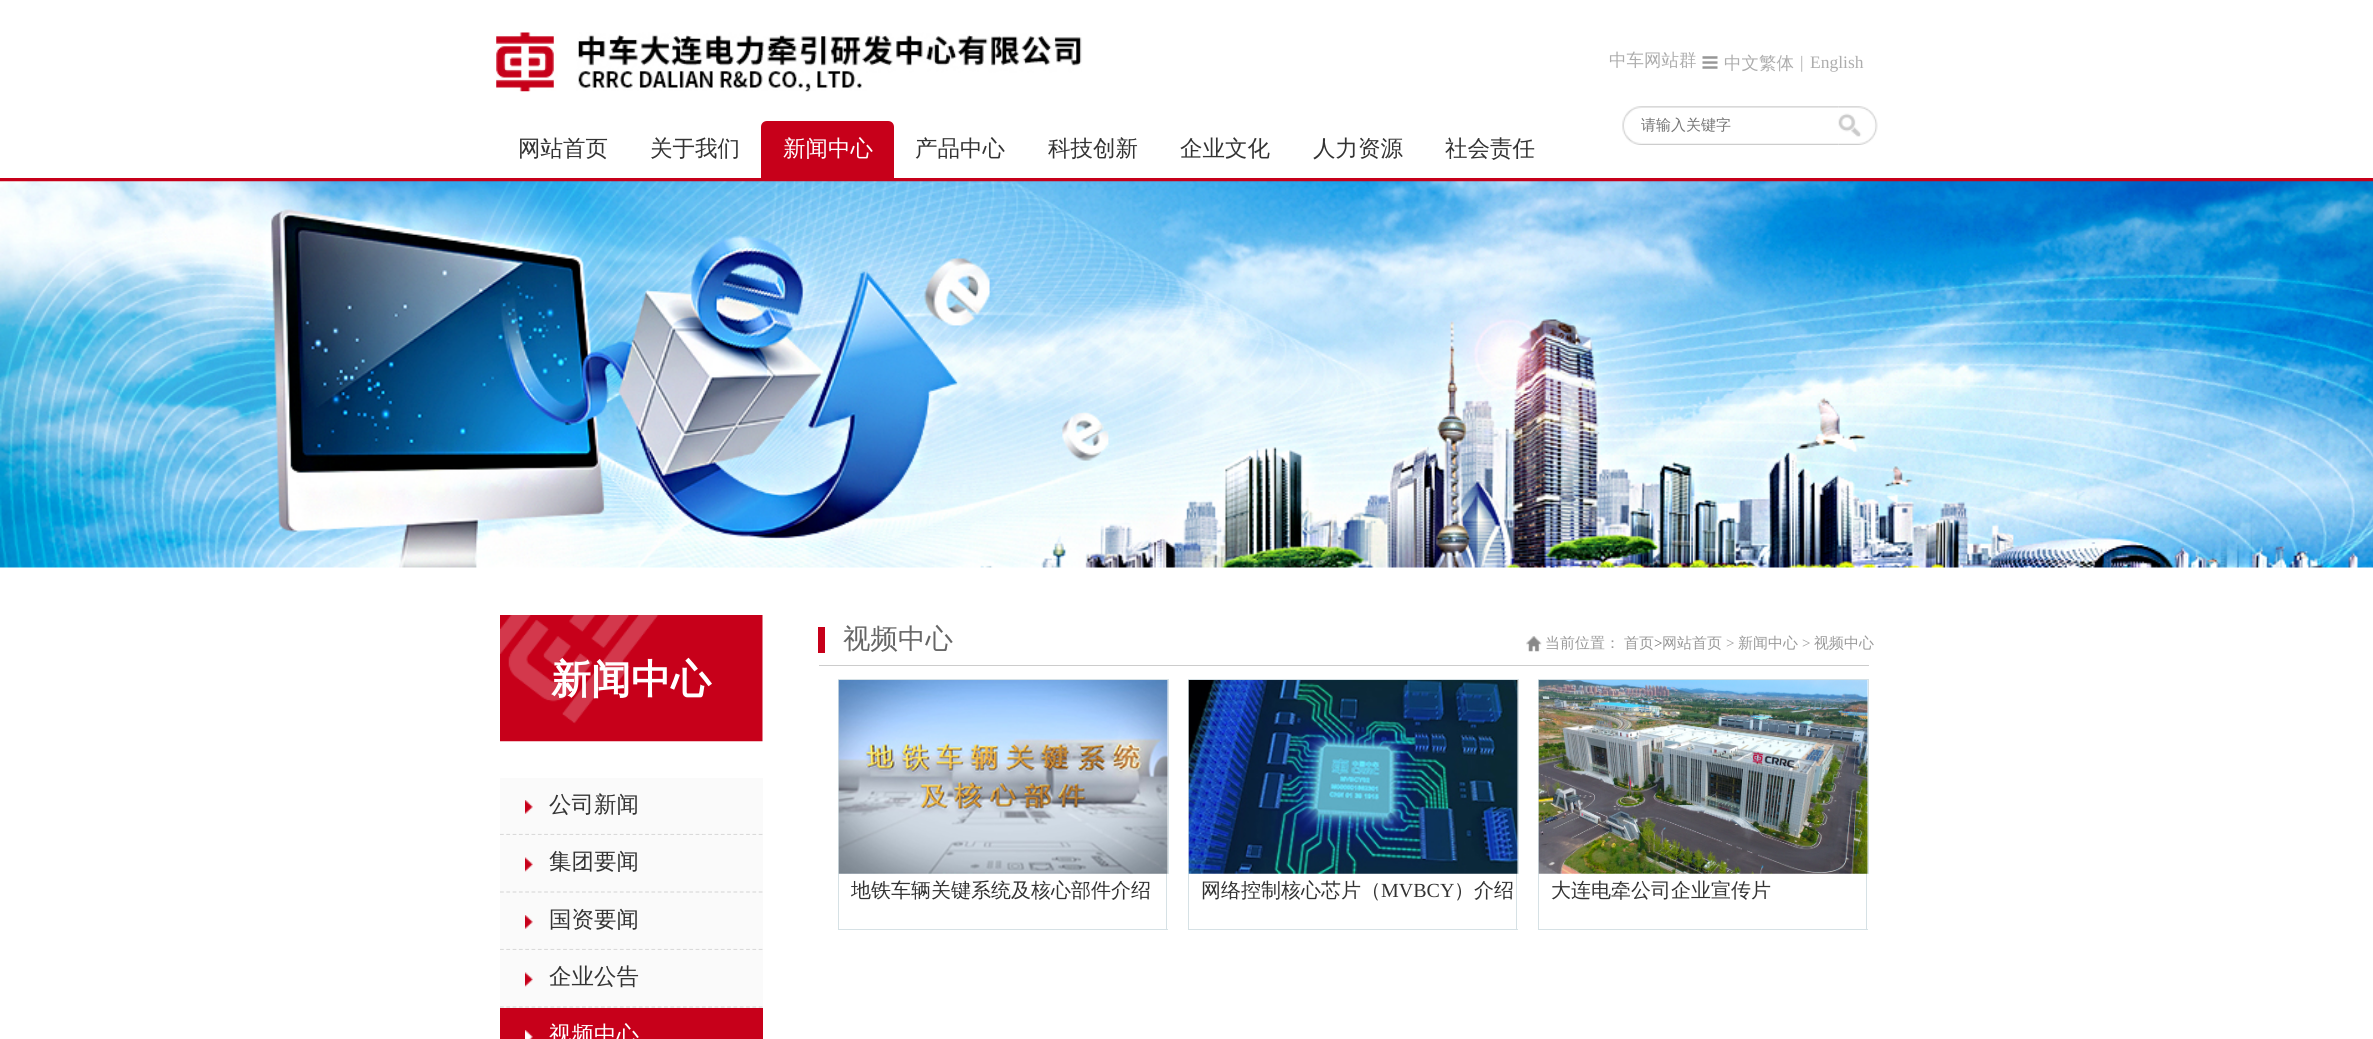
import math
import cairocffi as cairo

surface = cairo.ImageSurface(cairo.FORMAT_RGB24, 2373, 1039)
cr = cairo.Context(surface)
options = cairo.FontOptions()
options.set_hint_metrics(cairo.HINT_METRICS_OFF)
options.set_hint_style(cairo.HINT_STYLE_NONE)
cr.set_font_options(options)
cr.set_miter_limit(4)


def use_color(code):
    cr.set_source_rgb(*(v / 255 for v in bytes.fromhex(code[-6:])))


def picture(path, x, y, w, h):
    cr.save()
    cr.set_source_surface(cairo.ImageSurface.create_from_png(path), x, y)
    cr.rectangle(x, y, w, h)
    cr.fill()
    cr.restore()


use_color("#ffffff")
cr.paint()
picture("img1.png", 496, 32, 586, 60)
cr.select_font_face("WenQuanYi Zen Hei Medium")
cr.set_font_size(17.5)
use_color("#adadad")
cr.move_to(1609, 66)
cr.show_text("中车网站群")
picture("img2.png", 1702, 56, 16, 13)
cr.move_to(1724, 69)
cr.show_text("中文繁体")
cr.select_font_face("Liberation Serif")
cr.move_to(1800, 68)
cr.show_text("|")
cr.move_to(1810, 68)
cr.show_text("English")
picture("img3.png", 1622, 106, 217, 39)
cr.select_font_face("WenQuanYi Zen Hei Medium")
cr.set_font_size(15)
use_color("#757575")
cr.move_to(1641, 130)
cr.show_text("请输入关键字")
picture("img4.png", 1838, 106, 40, 39)
cr.set_font_size(22.5)
use_color("#333333")
cr.move_to(518, 156)
cr.show_text("网站首页")
cr.move_to(650, 156)
cr.show_text("关于我们")
use_color("#c7001a")
cr.new_path()
cr.move_to(767, 121)
cr.line_to(888, 121)
cr.curve_to(891.5, 121, 894, 123.5, 894, 127)
cr.line_to(894, 178)
cr.line_to(761, 178)
cr.line_to(761, 127)
cr.curve_to(761, 123.5, 763.5, 121, 767, 121)
cr.close_path()
cr.fill()
use_color("#ffffff")
cr.move_to(783, 156)
cr.show_text("新闻中心")
use_color("#333333")
cr.move_to(915, 156)
cr.show_text("产品中心")
cr.move_to(1048, 156)
cr.show_text("科技创新")
cr.move_to(1180, 156)
cr.show_text("企业文化")
cr.move_to(1313, 156)
cr.show_text("人力资源")
cr.move_to(1445, 156)
cr.show_text("社会责任")
use_color("#c7001a")
cr.rectangle(0, 178, 2373, 4)
cr.fill()
picture("img5.png", 0, 181, 2373, 387)
cr.rectangle(818, 627, 7, 26)
cr.fill()
use_color("#cccccc")
cr.rectangle(819, 665, 1050, 1)
cr.fill()
cr.set_font_size(27.5)
use_color("#666666")
cr.move_to(843, 648)
cr.show_text("视频中心")
use_color("#d6e1e5")
cr.rectangle(838, 679, 331, 1)
cr.fill()
cr.rectangle(838, 873, 1, 37)
cr.fill()
cr.rectangle(838, 679, 1, 195)
cr.fill()
cr.rectangle(1168, 679, 1, 195)
cr.fill()
cr.rectangle(1166, 873, 1, 57)
cr.fill()
picture("img6.png", 838, 680, 330, 194)
cr.set_font_size(20)
use_color("#333333")
cr.move_to(851, 897)
cr.show_text("地铁车辆关键系统及核心部件介绍")
use_color("#d6e1e5")
cr.rectangle(838, 929, 330, 1)
cr.fill()
cr.rectangle(838, 910, 1, 20)
cr.fill()
cr.rectangle(1188, 679, 331, 1)
cr.fill()
cr.rectangle(1188, 873, 1, 37)
cr.fill()
cr.rectangle(1188, 679, 1, 195)
cr.fill()
cr.rectangle(1518, 679, 1, 195)
cr.fill()
cr.rectangle(1516, 873, 1, 57)
cr.fill()
picture("img7.png", 1188, 680, 330, 194)
use_color("#333333")
cr.move_to(1201, 897)
cr.show_text("网络控制核心芯片（")
cr.select_font_face("Liberation Serif")
cr.move_to(1381, 897)
cr.show_text("MVBCY")
cr.select_font_face("WenQuanYi Zen Hei Medium")
cr.move_to(1454, 897)
cr.show_text("）介绍")
use_color("#d6e1e5")
cr.rectangle(1188, 929, 330, 1)
cr.fill()
cr.rectangle(1188, 910, 1, 20)
cr.fill()
cr.rectangle(1538, 679, 331, 1)
cr.fill()
cr.rectangle(1538, 873, 1, 37)
cr.fill()
cr.rectangle(1538, 679, 1, 195)
cr.fill()
cr.rectangle(1868, 679, 1, 195)
cr.fill()
cr.rectangle(1866, 873, 1, 57)
cr.fill()
picture("img8.png", 1538, 680, 330, 194)
use_color("#333333")
cr.move_to(1551, 897)
cr.show_text("大连电牵公司企业宣传片")
use_color("#d6e1e5")
cr.rectangle(1538, 929, 330, 1)
cr.fill()
cr.rectangle(1538, 910, 1, 20)
cr.fill()
picture("img9.png", 1526, 636, 16, 16)
cr.set_font_size(15)
use_color("#999999")
cr.move_to(1545, 648)
cr.show_text("当前位置：")
cr.move_to(1624, 648)
cr.show_text("首页")
cr.select_font_face("Liberation Serif")
use_color("#666666")
cr.move_to(1654, 648)
cr.show_text(">")
cr.select_font_face("WenQuanYi Zen Hei Medium")
use_color("#999999")
cr.move_to(1662, 648)
cr.show_text("网站首页")
cr.select_font_face("Liberation Serif")
cr.move_to(1726, 648)
cr.show_text(">")
cr.select_font_face("WenQuanYi Zen Hei Medium")
cr.move_to(1738, 648)
cr.show_text("新闻中心")
cr.select_font_face("Liberation Serif")
cr.move_to(1802, 648)
cr.show_text(">")
cr.select_font_face("WenQuanYi Zen Hei Medium")
cr.move_to(1814, 648)
cr.show_text("视频中心")
picture("img10.png", 500, 615, 263, 127)
cr.select_font_face("WenQuanYi Zen Hei", cairo.FONT_SLANT_NORMAL, cairo.FONT_WEIGHT_BOLD)
cr.set_font_size(40)
use_color("#ffffff")
cr.move_to(551, 693)
cr.show_text("新闻中心")
use_color("#fafafa")
cr.rectangle(500, 778, 263, 57)
cr.fill()
picture("img11.png", 525, 800, 8, 14)
cr.new_path()
cr.move_to(500, 834.5)
cr.line_to(762.5, 834.5)
use_color("#dadada")
cr.set_line_width(1.2)
cr.set_dash([3.75, 2.56])
cr.stroke()
cr.select_font_face("WenQuanYi Zen Hei Medium")
cr.set_font_size(22.5)
use_color("#333333")
cr.move_to(549, 812)
cr.show_text("公司新闻")
use_color("#fafafa")
cr.rectangle(500, 835, 263, 115)
cr.fill()
picture("img12.png", 525, 857, 8, 15)
cr.new_path()
cr.move_to(500, 892)
cr.line_to(762.5, 892)
use_color("#dadada")
cr.stroke()
use_color("#333333")
cr.move_to(549, 869)
cr.show_text("集团要闻")
picture("img11.png", 525, 915, 8, 14)
cr.new_path()
cr.move_to(500, 949.5)
cr.line_to(762.5, 949.5)
use_color("#dadada")
cr.stroke()
use_color("#333333")
cr.move_to(549, 927)
cr.show_text("国资要闻")
use_color("#fafafa")
cr.rectangle(500, 950, 263, 58)
cr.fill()
picture("img12.png", 525, 972, 8, 15)
cr.new_path()
cr.move_to(500, 1007)
cr.line_to(762.5, 1007)
use_color("#dadada")
cr.stroke()
use_color("#333333")
cr.move_to(549, 984)
cr.show_text("企业公告")
use_color("#c7001a")
cr.rectangle(500, 1008, 263, 31)
cr.fill()
picture("img13.png", 525, 1030, 8, 9)
use_color("#ffffff")
cr.move_to(549, 1042)
cr.show_text("视频中心")
surface.write_to_png("result.png")
